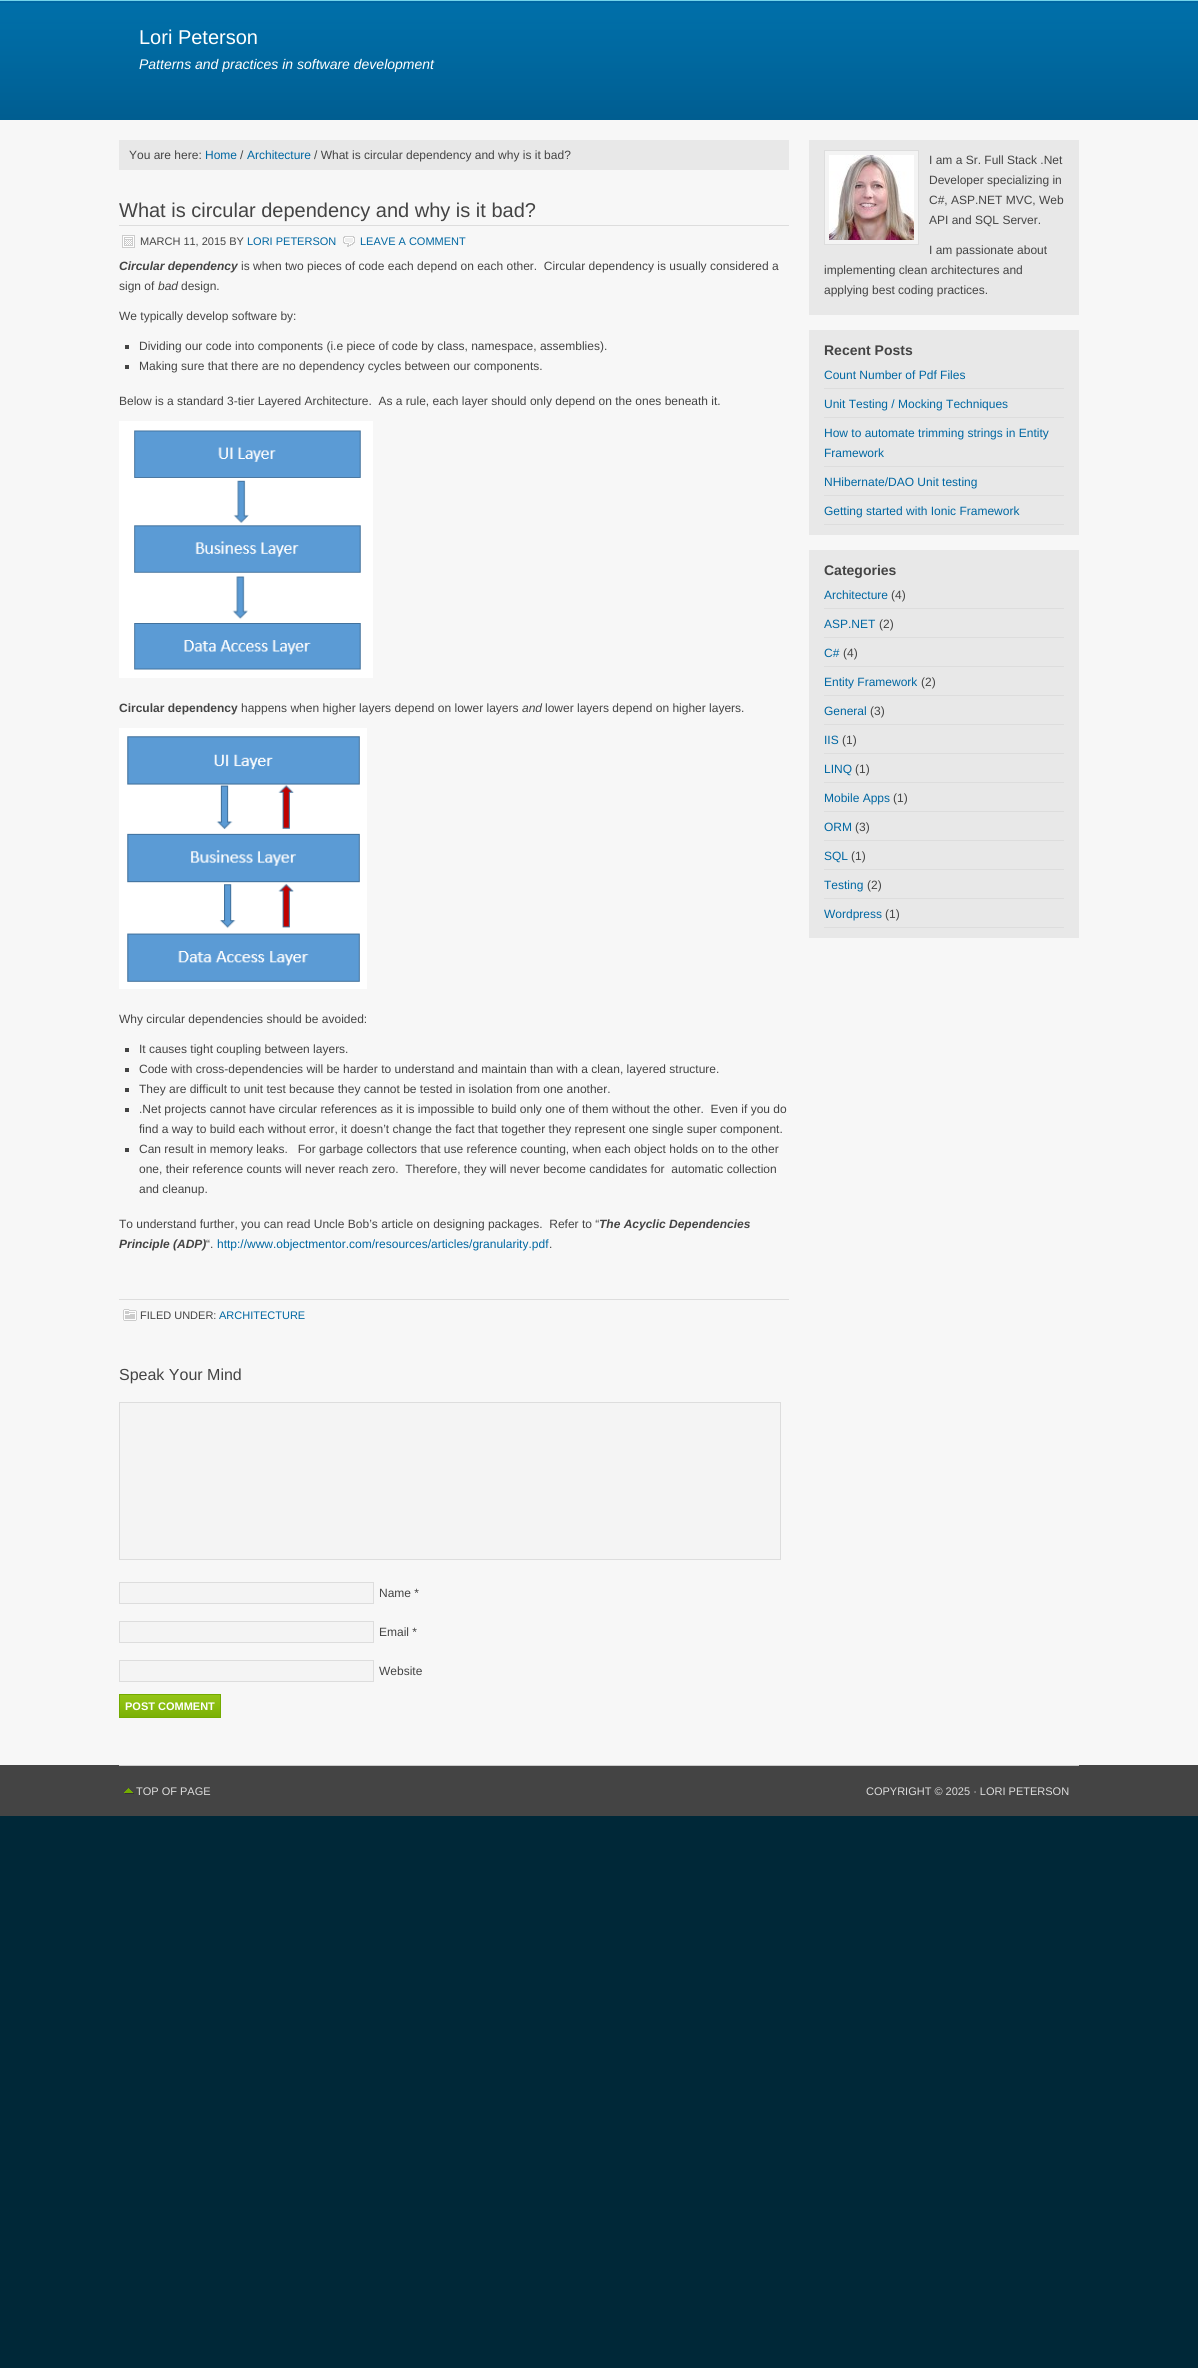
import math
import cairocffi as cairo

surface = cairo.ImageSurface(cairo.FORMAT_RGB24, 1198, 2368)
cr = cairo.Context(surface)
options = cairo.FontOptions()
options.set_hint_metrics(cairo.HINT_METRICS_OFF)
options.set_hint_style(cairo.HINT_STYLE_NONE)
cr.set_font_options(options)
cr.set_miter_limit(4)


def use_color(code):
    cr.set_source_rgb(*(v / 255 for v in bytes.fromhex(code[-6:])))


def picture(path, x, y, w, h):
    cr.save()
    cr.set_source_surface(cairo.ImageSurface.create_from_png(path), x, y)
    cr.rectangle(x, y, w, h)
    cr.fill()
    cr.restore()


use_color("#002838")
cr.paint()
use_color("#f7f7f7")
cr.rectangle(0, 120, 1198, 1645)
cr.fill()
picture("img1.png", 0, 0, 1198, 120)
cr.select_font_face("Liberation Sans")
cr.set_font_size(20)
use_color("#ffffff")
cr.move_to(139, 44)
cr.show_text("Lori Peterson")
cr.select_font_face("Liberation Sans", cairo.FONT_SLANT_ITALIC)
cr.set_font_size(14)
cr.move_to(139, 69)
cr.show_text("Patterns and practices in software development")
use_color("#e8e8e8")
cr.rectangle(119, 140, 670, 30)
cr.fill()
cr.select_font_face("Liberation Sans")
cr.set_font_size(12)
use_color("#444444")
cr.move_to(129, 159)
cr.show_text("You are here:")
use_color("#0067a2")
cr.move_to(205, 159)
cr.show_text("Home")
use_color("#444444")
cr.move_to(240, 159)
cr.show_text("/")
use_color("#0067a2")
cr.move_to(247, 159)
cr.show_text("Architecture")
use_color("#444444")
cr.move_to(314, 159)
cr.show_text("/ What is circular dependency and why is it bad?")
use_color("#dddddd")
cr.rectangle(119, 225, 670, 1)
cr.fill()
cr.set_font_size(20)
use_color("#444444")
cr.move_to(119, 217)
cr.show_text("What is circular dependency and why is it bad?")
picture("img2.png", 122, 235, 13, 13)
cr.set_font_size(11)
cr.move_to(140, 245)
cr.show_text("MARCH 11, 2015 BY")
use_color("#0067a2")
cr.move_to(247, 245)
cr.show_text("LORI PETERSON")
picture("img3.png", 343, 236, 12, 11)
cr.move_to(360, 245)
cr.show_text("LEAVE A COMMENT")
cr.select_font_face("Liberation Sans", cairo.FONT_SLANT_ITALIC, cairo.FONT_WEIGHT_BOLD)
cr.set_font_size(12)
use_color("#444444")
cr.move_to(119, 270)
cr.show_text("Circular dependency")
cr.select_font_face("Liberation Sans")
cr.move_to(241, 270)
cr.show_text("is when two pieces of code each depend on each other.  Circular dependency is usually considered a")
cr.move_to(119, 290)
cr.show_text("sign of")
cr.select_font_face("Liberation Sans", cairo.FONT_SLANT_ITALIC)
cr.move_to(158, 290)
cr.show_text("bad")
cr.select_font_face("Liberation Sans")
cr.move_to(181, 290)
cr.show_text("design.")
cr.move_to(119, 320)
cr.show_text("We typically develop software by:")
cr.rectangle(125, 345, 4, 4)
cr.fill()
cr.move_to(139, 350)
cr.show_text("Dividing our code into components (i.e piece of code by class, namespace, assemblies).")
cr.rectangle(125, 365, 4, 4)
cr.fill()
cr.move_to(139, 370)
cr.show_text("Making sure that there are no dependency cycles between our components.")
cr.move_to(119, 405)
cr.show_text("Below is a standard 3-tier Layered Architecture.  As a rule, each layer should only depend on the ones beneath it.")
picture("img4.png", 119, 421, 254, 257)
cr.select_font_face("Liberation Sans", cairo.FONT_SLANT_NORMAL, cairo.FONT_WEIGHT_BOLD)
cr.move_to(119, 712)
cr.show_text("Circular dependency")
cr.select_font_face("Liberation Sans")
cr.move_to(241, 712)
cr.show_text("happens when higher layers depend on lower layers")
cr.select_font_face("Liberation Sans", cairo.FONT_SLANT_ITALIC)
cr.move_to(522, 712)
cr.show_text("and")
cr.select_font_face("Liberation Sans")
cr.move_to(545, 712)
cr.show_text("lower layers depend on higher layers.")
picture("img5.png", 119, 728, 248, 261)
cr.move_to(119, 1023)
cr.show_text("Why circular dependencies should be avoided:")
cr.rectangle(125, 1048, 4, 4)
cr.fill()
cr.move_to(139, 1053)
cr.show_text("It causes tight coupling between layers.")
cr.rectangle(125, 1068, 4, 4)
cr.fill()
cr.move_to(139, 1073)
cr.show_text("Code with cross-dependencies will be harder to understand and maintain than with a clean, layered structure.")
cr.rectangle(125, 1088, 4, 4)
cr.fill()
cr.move_to(139, 1093)
cr.show_text("They are difficult to unit test because they cannot be tested in isolation from one another.")
cr.rectangle(125, 1108, 4, 4)
cr.fill()
cr.move_to(139, 1113)
cr.show_text(".Net projects cannot have circular references as it is impossible to build only one of them without the other.  Even if you do")
cr.move_to(139, 1133)
cr.show_text("find a way to build each without error, it doesn’t change the fact that together they represent one single super component.")
cr.rectangle(125, 1148, 4, 4)
cr.fill()
cr.move_to(139, 1153)
cr.show_text("Can result in memory leaks.   For garbage collectors that use reference counting, when each object holds on to the other")
cr.move_to(139, 1173)
cr.show_text("one, their reference counts will never reach zero.  Therefore, they will never become candidates for  automatic collection")
cr.move_to(139, 1193)
cr.show_text("and cleanup.")
cr.move_to(119, 1228)
cr.show_text("To understand further, you can read Uncle Bob’s article on designing packages.  Refer to “")
cr.select_font_face("Liberation Sans", cairo.FONT_SLANT_ITALIC, cairo.FONT_WEIGHT_BOLD)
cr.move_to(599, 1228)
cr.show_text("The Acyclic Dependencies")
cr.move_to(119, 1248)
cr.show_text("Principle (ADP)")
cr.select_font_face("Liberation Sans")
cr.move_to(206, 1248)
cr.show_text("“.")
use_color("#0067a2")
cr.move_to(217, 1248)
cr.show_text("http://www.objectmentor.com/resources/articles/granularity.pdf")
use_color("#444444")
cr.move_to(549, 1248)
cr.show_text(".")
use_color("#dddddd")
cr.rectangle(119, 1299, 670, 1)
cr.fill()
picture("img6.png", 122, 1309, 15, 12)
cr.set_font_size(11)
use_color("#444444")
cr.move_to(140, 1319)
cr.show_text("FILED UNDER:")
use_color("#0067a2")
cr.move_to(219, 1319)
cr.show_text("ARCHITECTURE")
cr.set_font_size(16)
use_color("#444444")
cr.move_to(119, 1380)
cr.show_text("Speak Your Mind")
use_color("#f4f4f4")
cr.rectangle(119.5, 1402.5, 661, 157)
cr.fill_preserve()
use_color("#dddddd")
cr.set_line_width(1)
cr.stroke()
use_color("#f4f4f4")
cr.rectangle(119.5, 1582.5, 254, 21)
cr.fill_preserve()
use_color("#dddddd")
cr.stroke()
cr.set_font_size(12)
use_color("#444444")
cr.move_to(379, 1597)
cr.show_text("Name *")
use_color("#f4f4f4")
cr.rectangle(119.5, 1621.5, 254, 21)
cr.fill_preserve()
use_color("#dddddd")
cr.stroke()
use_color("#444444")
cr.move_to(379, 1636)
cr.show_text("Email *")
use_color("#f4f4f4")
cr.rectangle(119.5, 1660.5, 254, 21)
cr.fill_preserve()
use_color("#dddddd")
cr.stroke()
use_color("#444444")
cr.move_to(379, 1675)
cr.show_text("Website")
picture("img7.png", 120, 1695, 100, 22)
cr.rectangle(119.5, 1694.5, 101, 23)
use_color("#73ab00")
cr.stroke()
cr.select_font_face("Liberation Sans", cairo.FONT_SLANT_NORMAL, cairo.FONT_WEIGHT_BOLD)
cr.set_font_size(11)
use_color("#ffffff")
cr.move_to(125, 1710)
cr.show_text("POST COMMENT")
use_color("#e8e8e8")
cr.rectangle(809, 140, 270, 175)
cr.fill()
use_color("#f4f4f4")
cr.rectangle(824.5, 150.5, 94, 94)
cr.fill_preserve()
use_color("#dddddd")
cr.stroke()
picture("img8.png", 829, 155, 85, 85)
cr.select_font_face("Liberation Sans")
cr.set_font_size(12)
use_color("#444444")
cr.move_to(929, 164)
cr.show_text("I am a Sr. Full Stack .Net")
cr.move_to(929, 184)
cr.show_text("Developer specializing in")
cr.move_to(929, 204)
cr.show_text("C#, ASP.NET MVC, Web")
cr.move_to(929, 224)
cr.show_text("API and SQL Server.")
cr.move_to(929, 254)
cr.show_text("I am passionate about")
cr.move_to(824, 274)
cr.show_text("implementing clean architectures and")
cr.move_to(824, 294)
cr.show_text("applying best coding practices.")
use_color("#e8e8e8")
cr.rectangle(809, 330, 270, 205)
cr.fill()
cr.select_font_face("Liberation Sans", cairo.FONT_SLANT_NORMAL, cairo.FONT_WEIGHT_BOLD)
cr.set_font_size(14)
use_color("#444444")
cr.move_to(824, 355)
cr.show_text("Recent Posts")
use_color("#dddddd")
cr.rectangle(824, 388, 240, 1)
cr.fill()
cr.select_font_face("Liberation Sans")
cr.set_font_size(12)
use_color("#0067a2")
cr.move_to(824, 379)
cr.show_text("Count Number of Pdf Files")
use_color("#dddddd")
cr.rectangle(824, 417, 240, 1)
cr.fill()
use_color("#0067a2")
cr.move_to(824, 408)
cr.show_text("Unit Testing / Mocking Techniques")
use_color("#dddddd")
cr.rectangle(824, 466, 240, 1)
cr.fill()
use_color("#0067a2")
cr.move_to(824, 437)
cr.show_text("How to automate trimming strings in Entity")
cr.move_to(824, 457)
cr.show_text("Framework")
use_color("#dddddd")
cr.rectangle(824, 495, 240, 1)
cr.fill()
use_color("#0067a2")
cr.move_to(824, 486)
cr.show_text("NHibernate/DAO Unit testing")
use_color("#dddddd")
cr.rectangle(824, 524, 240, 1)
cr.fill()
use_color("#0067a2")
cr.move_to(824, 515)
cr.show_text("Getting started with Ionic Framework")
use_color("#e8e8e8")
cr.rectangle(809, 550, 270, 388)
cr.fill()
cr.select_font_face("Liberation Sans", cairo.FONT_SLANT_NORMAL, cairo.FONT_WEIGHT_BOLD)
cr.set_font_size(14)
use_color("#444444")
cr.move_to(824, 575)
cr.show_text("Categories")
use_color("#dddddd")
cr.rectangle(824, 608, 240, 1)
cr.fill()
cr.select_font_face("Liberation Sans")
cr.set_font_size(12)
use_color("#0067a2")
cr.move_to(824, 599)
cr.show_text("Architecture")
use_color("#444444")
cr.move_to(891, 599)
cr.show_text("(4)")
use_color("#dddddd")
cr.rectangle(824, 637, 240, 1)
cr.fill()
use_color("#0067a2")
cr.move_to(824, 628)
cr.show_text("ASP.NET")
use_color("#444444")
cr.move_to(879, 628)
cr.show_text("(2)")
use_color("#dddddd")
cr.rectangle(824, 666, 240, 1)
cr.fill()
use_color("#0067a2")
cr.move_to(824, 657)
cr.show_text("C#")
use_color("#444444")
cr.move_to(843, 657)
cr.show_text("(4)")
use_color("#dddddd")
cr.rectangle(824, 695, 240, 1)
cr.fill()
use_color("#0067a2")
cr.move_to(824, 686)
cr.show_text("Entity Framework")
use_color("#444444")
cr.move_to(921, 686)
cr.show_text("(2)")
use_color("#dddddd")
cr.rectangle(824, 724, 240, 1)
cr.fill()
use_color("#0067a2")
cr.move_to(824, 715)
cr.show_text("General")
use_color("#444444")
cr.move_to(870, 715)
cr.show_text("(3)")
use_color("#dddddd")
cr.rectangle(824, 753, 240, 1)
cr.fill()
use_color("#0067a2")
cr.move_to(824, 744)
cr.show_text("IIS")
use_color("#444444")
cr.move_to(842, 744)
cr.show_text("(1)")
use_color("#dddddd")
cr.rectangle(824, 782, 240, 1)
cr.fill()
use_color("#0067a2")
cr.move_to(824, 773)
cr.show_text("LINQ")
use_color("#444444")
cr.move_to(855, 773)
cr.show_text("(1)")
use_color("#dddddd")
cr.rectangle(824, 811, 240, 1)
cr.fill()
use_color("#0067a2")
cr.move_to(824, 802)
cr.show_text("Mobile Apps")
use_color("#444444")
cr.move_to(893, 802)
cr.show_text("(1)")
use_color("#dddddd")
cr.rectangle(824, 840, 240, 1)
cr.fill()
use_color("#0067a2")
cr.move_to(824, 831)
cr.show_text("ORM")
use_color("#444444")
cr.move_to(855, 831)
cr.show_text("(3)")
use_color("#dddddd")
cr.rectangle(824, 869, 240, 1)
cr.fill()
use_color("#0067a2")
cr.move_to(824, 860)
cr.show_text("SQL")
use_color("#444444")
cr.move_to(851, 860)
cr.show_text("(1)")
use_color("#dddddd")
cr.rectangle(824, 898, 240, 1)
cr.fill()
use_color("#0067a2")
cr.move_to(824, 889)
cr.show_text("Testing")
use_color("#444444")
cr.move_to(867, 889)
cr.show_text("(2)")
use_color("#dddddd")
cr.rectangle(824, 927, 240, 1)
cr.fill()
use_color("#0067a2")
cr.move_to(824, 918)
cr.show_text("Wordpress")
use_color("#444444")
cr.move_to(885, 918)
cr.show_text("(1)")
cr.rectangle(0, 1765, 1198, 51)
cr.fill()
use_color("#cccccc")
cr.rectangle(119, 1765, 960, 1)
cr.fill()
picture("img9.png", 124, 1788, 10, 6)
cr.set_font_size(11)
use_color("#dddddd")
cr.move_to(136, 1795)
cr.show_text("TOP OF PAGE")
cr.move_to(866, 1795)
cr.show_text("COPYRIGHT © 2025 · LORI PETERSON")
surface.write_to_png("result.png")
